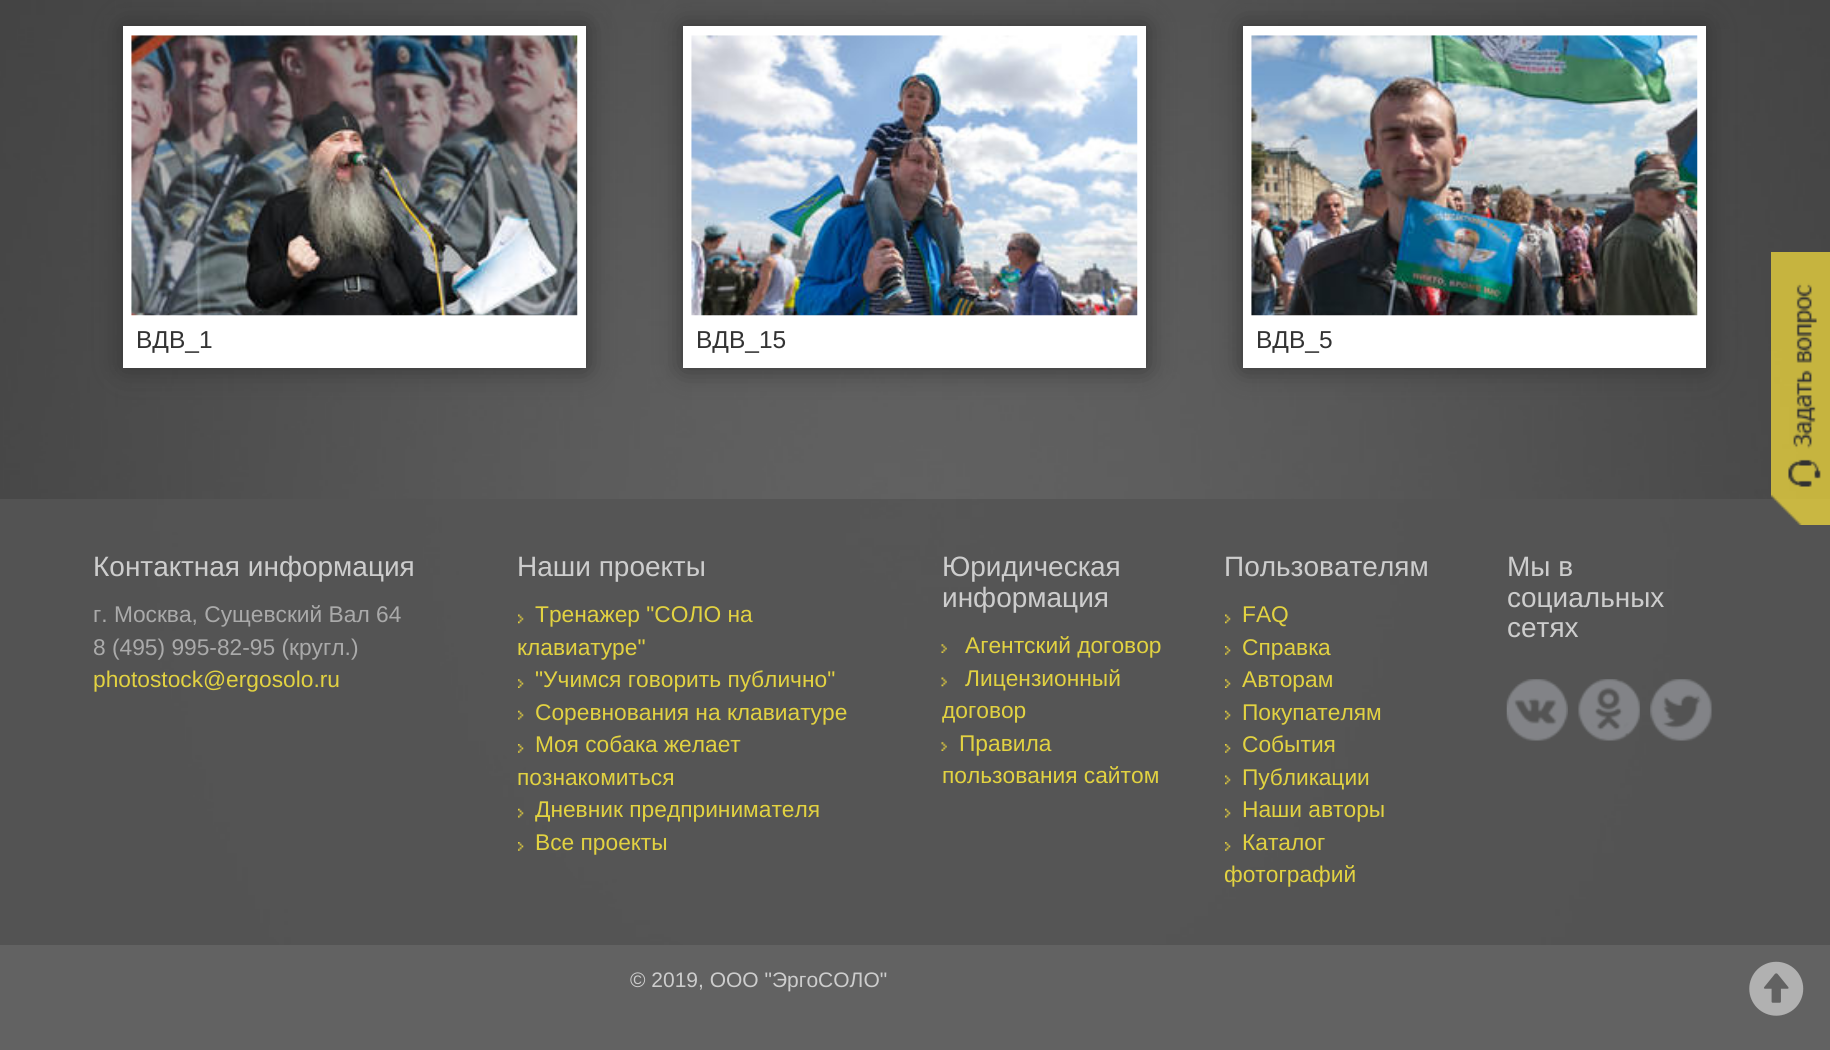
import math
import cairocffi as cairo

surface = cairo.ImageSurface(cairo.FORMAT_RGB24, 1830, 1050)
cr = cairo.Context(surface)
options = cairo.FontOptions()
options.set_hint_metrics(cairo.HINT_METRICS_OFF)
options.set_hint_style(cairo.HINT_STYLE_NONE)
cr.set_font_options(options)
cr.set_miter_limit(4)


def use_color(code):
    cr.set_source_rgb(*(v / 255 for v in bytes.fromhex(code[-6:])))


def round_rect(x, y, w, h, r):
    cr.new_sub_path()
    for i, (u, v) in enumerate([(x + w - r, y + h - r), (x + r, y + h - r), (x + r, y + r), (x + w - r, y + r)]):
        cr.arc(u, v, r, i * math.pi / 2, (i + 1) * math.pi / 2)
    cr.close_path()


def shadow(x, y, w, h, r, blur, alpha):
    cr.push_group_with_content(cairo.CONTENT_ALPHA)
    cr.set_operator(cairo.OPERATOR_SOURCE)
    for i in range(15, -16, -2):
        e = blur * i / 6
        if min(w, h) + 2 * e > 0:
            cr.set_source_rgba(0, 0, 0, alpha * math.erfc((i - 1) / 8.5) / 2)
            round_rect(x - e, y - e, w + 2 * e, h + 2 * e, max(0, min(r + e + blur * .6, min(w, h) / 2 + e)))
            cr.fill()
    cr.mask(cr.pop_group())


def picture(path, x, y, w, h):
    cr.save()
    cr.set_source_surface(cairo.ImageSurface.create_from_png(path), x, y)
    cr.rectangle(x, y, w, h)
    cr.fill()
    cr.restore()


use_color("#ffffff")
cr.paint()
picture("img1.png", 0, 0, 1830, 945)
use_color("#333333")
shadow(123, 26, 463, 342, 0, 13, 1)
use_color("#ffffff")
cr.rectangle(123, 26, 463, 342)
cr.fill()
picture("img2.png", 131, 35, 447, 281)
cr.select_font_face("Liberation Sans")
cr.set_font_size(24.5)
use_color("#333333")
cr.move_to(136, 348)
cr.show_text("ВДВ_1")
use_color("#333333")
shadow(683, 26, 463, 342, 0, 13, 1)
use_color("#ffffff")
cr.rectangle(683, 26, 463, 342)
cr.fill()
picture("img3.png", 691, 35, 447, 281)
use_color("#333333")
cr.move_to(696, 348)
cr.show_text("ВДВ_15")
use_color("#333333")
shadow(1243, 26, 463, 342, 0, 13, 1)
use_color("#ffffff")
cr.rectangle(1243, 26, 463, 342)
cr.fill()
picture("img4.png", 1251, 35, 447, 281)
use_color("#333333")
cr.move_to(1256, 348)
cr.show_text("ВДВ_5")
cr.set_source_rgba(0.333, 0.333, 0.333, 0.9)
cr.rectangle(0, 499, 1830, 446)
cr.fill()
picture("img5.png", 1771, 252, 59, 273)
cr.set_font_size(28)
use_color("#cdcdcd")
cr.move_to(93, 576)
cr.show_text("Контактная информация")
cr.set_font_size(22.75)
use_color("#aaaaaa")
cr.move_to(93, 622)
cr.show_text("г. Москва, Сущевский Вал 64")
cr.move_to(93, 655)
cr.show_text("8 (495) 995-82-95 (кругл.)")
use_color("#e2d241")
cr.move_to(93, 687)
cr.show_text("photostock@ergosolo.ru")
cr.set_font_size(28)
use_color("#cdcdcd")
cr.move_to(517, 576)
cr.show_text("Наши проекты")
picture("img6.png", 518, 614, 6, 10)
cr.set_font_size(22.75)
use_color("#e2d241")
cr.move_to(535, 622)
cr.show_text("Тренажер \"СОЛО на")
cr.move_to(517, 655)
cr.show_text("клавиатуре\"")
picture("img7.png", 518, 679, 6, 9)
cr.move_to(535, 687)
cr.show_text("\"Учимся говорить публично\"")
picture("img8.png", 518, 710, 6, 10)
cr.move_to(535, 720)
cr.show_text("Соревнования на клавиатуре")
picture("img9.png", 518, 744, 6, 9)
cr.move_to(535, 752)
cr.show_text("Моя собака желает")
cr.move_to(517, 785)
cr.show_text("познакомиться")
picture("img10.png", 518, 808, 6, 10)
cr.move_to(535, 817)
cr.show_text("Дневник предпринимателя")
picture("img11.png", 518, 842, 6, 9)
cr.move_to(535, 850)
cr.show_text("Все проекты")
cr.set_font_size(28)
use_color("#cdcdcd")
cr.move_to(942, 576)
cr.show_text("Юридическая")
cr.move_to(942, 607)
cr.show_text("информация")
picture("img12.png", 941, 644, 6, 9)
cr.set_font_size(22.75)
use_color("#e2d241")
cr.move_to(965, 653)
cr.show_text("Агентский договор")
picture("img13.png", 941, 677, 6, 10)
cr.move_to(965, 686)
cr.show_text("Лицензионный")
cr.move_to(942, 718)
cr.show_text("договор")
picture("img14.png", 941, 742, 6, 9)
cr.move_to(959, 751)
cr.show_text("Правила")
cr.move_to(942, 783)
cr.show_text("пользования сайтом")
cr.set_font_size(28)
use_color("#cdcdcd")
cr.move_to(1224, 576)
cr.show_text("Пользователям")
picture("img15.png", 1225, 614, 6, 10)
cr.set_font_size(22.75)
use_color("#e2d241")
cr.move_to(1242, 622)
cr.show_text("FAQ")
picture("img16.png", 1225, 646, 6, 9)
cr.move_to(1242, 655)
cr.show_text("Справка")
picture("img17.png", 1225, 679, 6, 9)
cr.move_to(1242, 687)
cr.show_text("Авторам")
picture("img18.png", 1225, 710, 6, 10)
cr.move_to(1242, 720)
cr.show_text("Покупателям")
picture("img19.png", 1225, 744, 6, 9)
cr.move_to(1242, 752)
cr.show_text("События")
picture("img20.png", 1225, 775, 6, 10)
cr.move_to(1242, 785)
cr.show_text("Публикации")
picture("img21.png", 1225, 808, 6, 10)
cr.move_to(1242, 817)
cr.show_text("Наши авторы")
picture("img9.png", 1225, 842, 6, 9)
cr.move_to(1242, 850)
cr.show_text("Каталог")
cr.move_to(1224, 882)
cr.show_text("фотографий")
cr.set_font_size(28)
use_color("#cdcdcd")
cr.move_to(1507, 576)
cr.show_text("Мы в")
cr.move_to(1507, 607)
cr.show_text("социальных")
cr.move_to(1507, 637)
cr.show_text("сетях")
picture("img22.png", 1506, 679, 62, 62)
picture("img23.png", 1578, 679, 62, 62)
picture("img24.png", 1650, 679, 62, 62)
use_color("#626262")
cr.rectangle(0, 945, 1830, 105)
cr.fill()
cr.set_font_size(21)
use_color("#cdcdcd")
cr.move_to(630, 987)
cr.show_text("© 2019, ООО \"ЭргоСОЛО\"")
picture("img25.png", 1749, 961, 55, 55)
surface.write_to_png("result.png")
